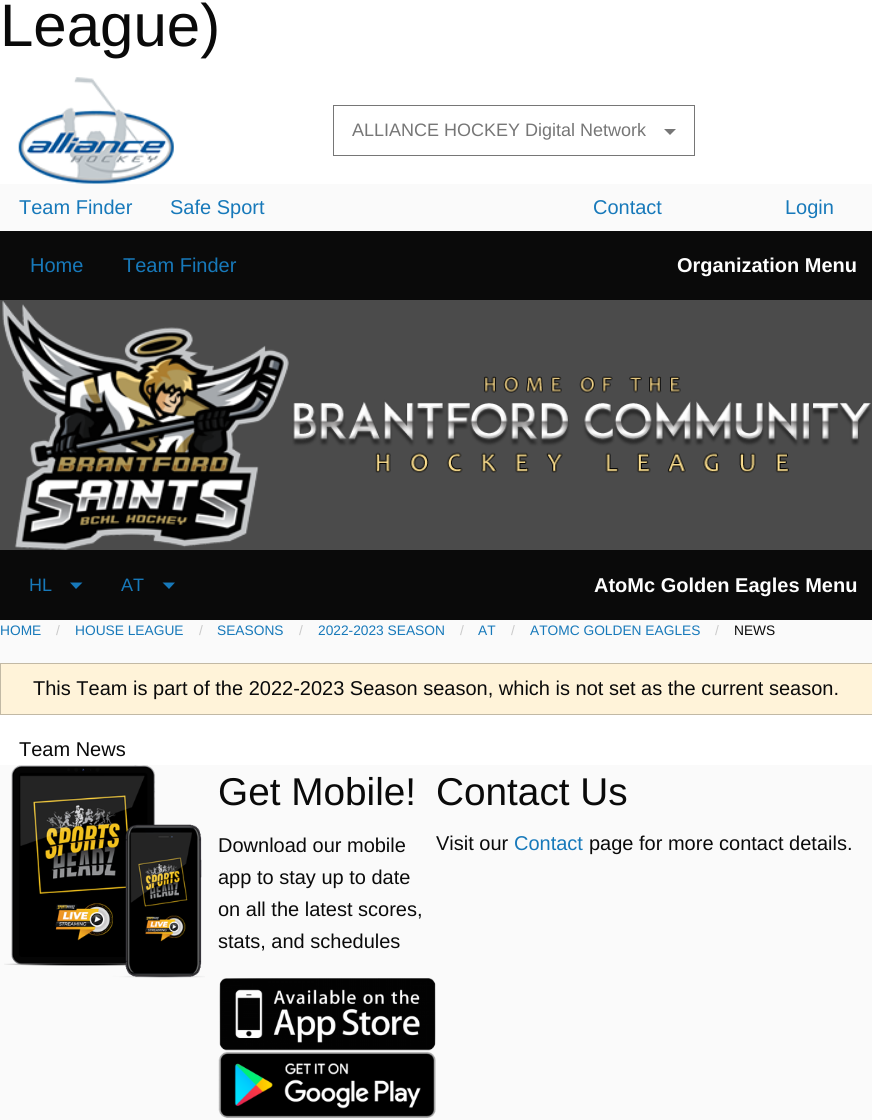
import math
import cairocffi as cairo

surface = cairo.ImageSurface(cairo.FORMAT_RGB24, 872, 1120)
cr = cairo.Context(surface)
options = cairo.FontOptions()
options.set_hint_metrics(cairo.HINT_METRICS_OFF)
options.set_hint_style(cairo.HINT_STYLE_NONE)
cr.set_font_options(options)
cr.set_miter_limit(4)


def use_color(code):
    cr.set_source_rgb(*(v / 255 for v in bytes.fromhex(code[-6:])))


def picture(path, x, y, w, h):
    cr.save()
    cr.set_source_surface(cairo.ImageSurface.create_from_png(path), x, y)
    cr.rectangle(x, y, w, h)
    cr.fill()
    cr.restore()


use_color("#ffffff")
cr.paint()
cr.select_font_face("Liberation Sans")
cr.set_font_size(60)
use_color("#0a0a0a")
cr.move_to(0, 46)
cr.show_text("League)")
picture("img1.png", 18, 77, 156, 107)
cr.rectangle(333.5, 105.5, 361, 50)
use_color("#767676")
cr.set_line_width(1)
cr.stroke()
cr.set_font_size(18)
cr.move_to(352, 136)
cr.show_text("ALLIANCE HOCKEY Digital Network")
cr.new_path()
cr.move_to(664, 129)
cr.line_to(676, 129)
cr.line_to(670, 135)
cr.close_path()
cr.fill()
use_color("#fafafa")
cr.rectangle(0, 184, 872, 936)
cr.fill()
cr.set_font_size(20)
use_color("#1779ba")
cr.move_to(19, 214)
cr.show_text("Team Finder")
cr.move_to(170, 214)
cr.show_text("Safe Sport")
cr.move_to(593, 214)
cr.show_text("Contact")
cr.move_to(785, 214)
cr.show_text("Login")
use_color("#0a0a0a")
cr.rectangle(0, 231, 872, 69)
cr.fill()
use_color("#1779ba")
cr.move_to(30, 272)
cr.show_text("Home")
cr.move_to(123, 272)
cr.show_text("Team Finder")
cr.select_font_face("Liberation Sans", cairo.FONT_SLANT_NORMAL, cairo.FONT_WEIGHT_BOLD)
use_color("#fefefe")
cr.move_to(677, 272)
cr.show_text("Organization Menu")
use_color("#4b4b4b")
cr.rectangle(0, 300, 872, 250)
cr.fill()
picture("img2.png", 2, 300, 287, 250)
picture("img3.png", 292, 376, 579, 97)
use_color("#0a0a0a")
cr.rectangle(0, 550, 872, 70)
cr.fill()
cr.select_font_face("Liberation Sans")
cr.set_font_size(18)
use_color("#1779ba")
cr.move_to(29, 591)
cr.show_text("HL")
cr.new_path()
cr.move_to(70, 582.5)
cr.line_to(82.5, 582.5)
cr.line_to(76, 589)
cr.close_path()
cr.fill()
cr.move_to(121, 591)
cr.show_text("AT")
cr.new_path()
cr.move_to(162.5, 582.5)
cr.line_to(175, 582.5)
cr.line_to(169, 589)
cr.close_path()
cr.fill()
cr.select_font_face("Liberation Sans", cairo.FONT_SLANT_NORMAL, cairo.FONT_WEIGHT_BOLD)
cr.set_font_size(20)
use_color("#fefefe")
cr.move_to(594, 592)
cr.show_text("AtoMc Golden Eagles Menu")
cr.select_font_face("Liberation Sans")
cr.set_font_size(13.75)
use_color("#1779ba")
cr.move_to(0, 635)
cr.show_text("HOME")
use_color("#cacaca")
cr.move_to(56, 635)
cr.show_text("/")
use_color("#1779ba")
cr.move_to(75, 635)
cr.show_text("HOUSE LEAGUE")
use_color("#cacaca")
cr.move_to(199, 635)
cr.show_text("/")
use_color("#1779ba")
cr.move_to(217, 635)
cr.show_text("SEASONS")
use_color("#cacaca")
cr.move_to(299, 635)
cr.show_text("/")
use_color("#1779ba")
cr.move_to(318, 635)
cr.show_text("2022-2023 SEASON")
use_color("#cacaca")
cr.move_to(460, 635)
cr.show_text("/")
use_color("#1779ba")
cr.move_to(478, 635)
cr.show_text("AT")
use_color("#cacaca")
cr.move_to(511, 635)
cr.show_text("/")
use_color("#1779ba")
cr.move_to(530, 635)
cr.show_text("ATOMC GOLDEN EAGLES")
use_color("#cacaca")
cr.move_to(715, 635)
cr.show_text("/")
use_color("#0a0a0a")
cr.move_to(734, 635)
cr.show_text("NEWS")
use_color("#ffffff")
cr.rectangle(0, 715, 872, 50)
cr.fill()
use_color("#fff3d9")
cr.rectangle(0.5, 663.5, 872, 51)
cr.fill_preserve()
use_color("#c2b9a5")
cr.stroke()
cr.set_font_size(20)
use_color("#0a0a0a")
cr.move_to(33, 695)
cr.show_text("This Team is part of the 2022-2023 Season season, which is not set as the current season.")
cr.move_to(19, 756)
cr.show_text("Team News")
picture("img4.png", 4, 765, 201, 213)
cr.set_font_size(38.75)
cr.move_to(218, 805)
cr.show_text("Get Mobile!")
cr.set_font_size(20)
cr.move_to(218, 852)
cr.show_text("Download our mobile")
cr.move_to(218, 884)
cr.show_text("app to stay up to date")
cr.move_to(218, 916)
cr.show_text("on all the latest scores,")
cr.move_to(218, 948)
cr.show_text("stats, and schedules")
picture("img5.png", 219, 978, 217, 73)
picture("img6.png", 218, 1051, 218, 67)
cr.set_font_size(38.75)
cr.move_to(436, 805)
cr.show_text("Contact Us")
cr.set_font_size(20)
cr.move_to(436, 850)
cr.show_text("Visit our")
use_color("#1779ba")
cr.move_to(514, 850)
cr.show_text("Contact")
use_color("#0a0a0a")
cr.move_to(589, 850)
cr.show_text("page for more contact details.")
surface.write_to_png("result.png")
